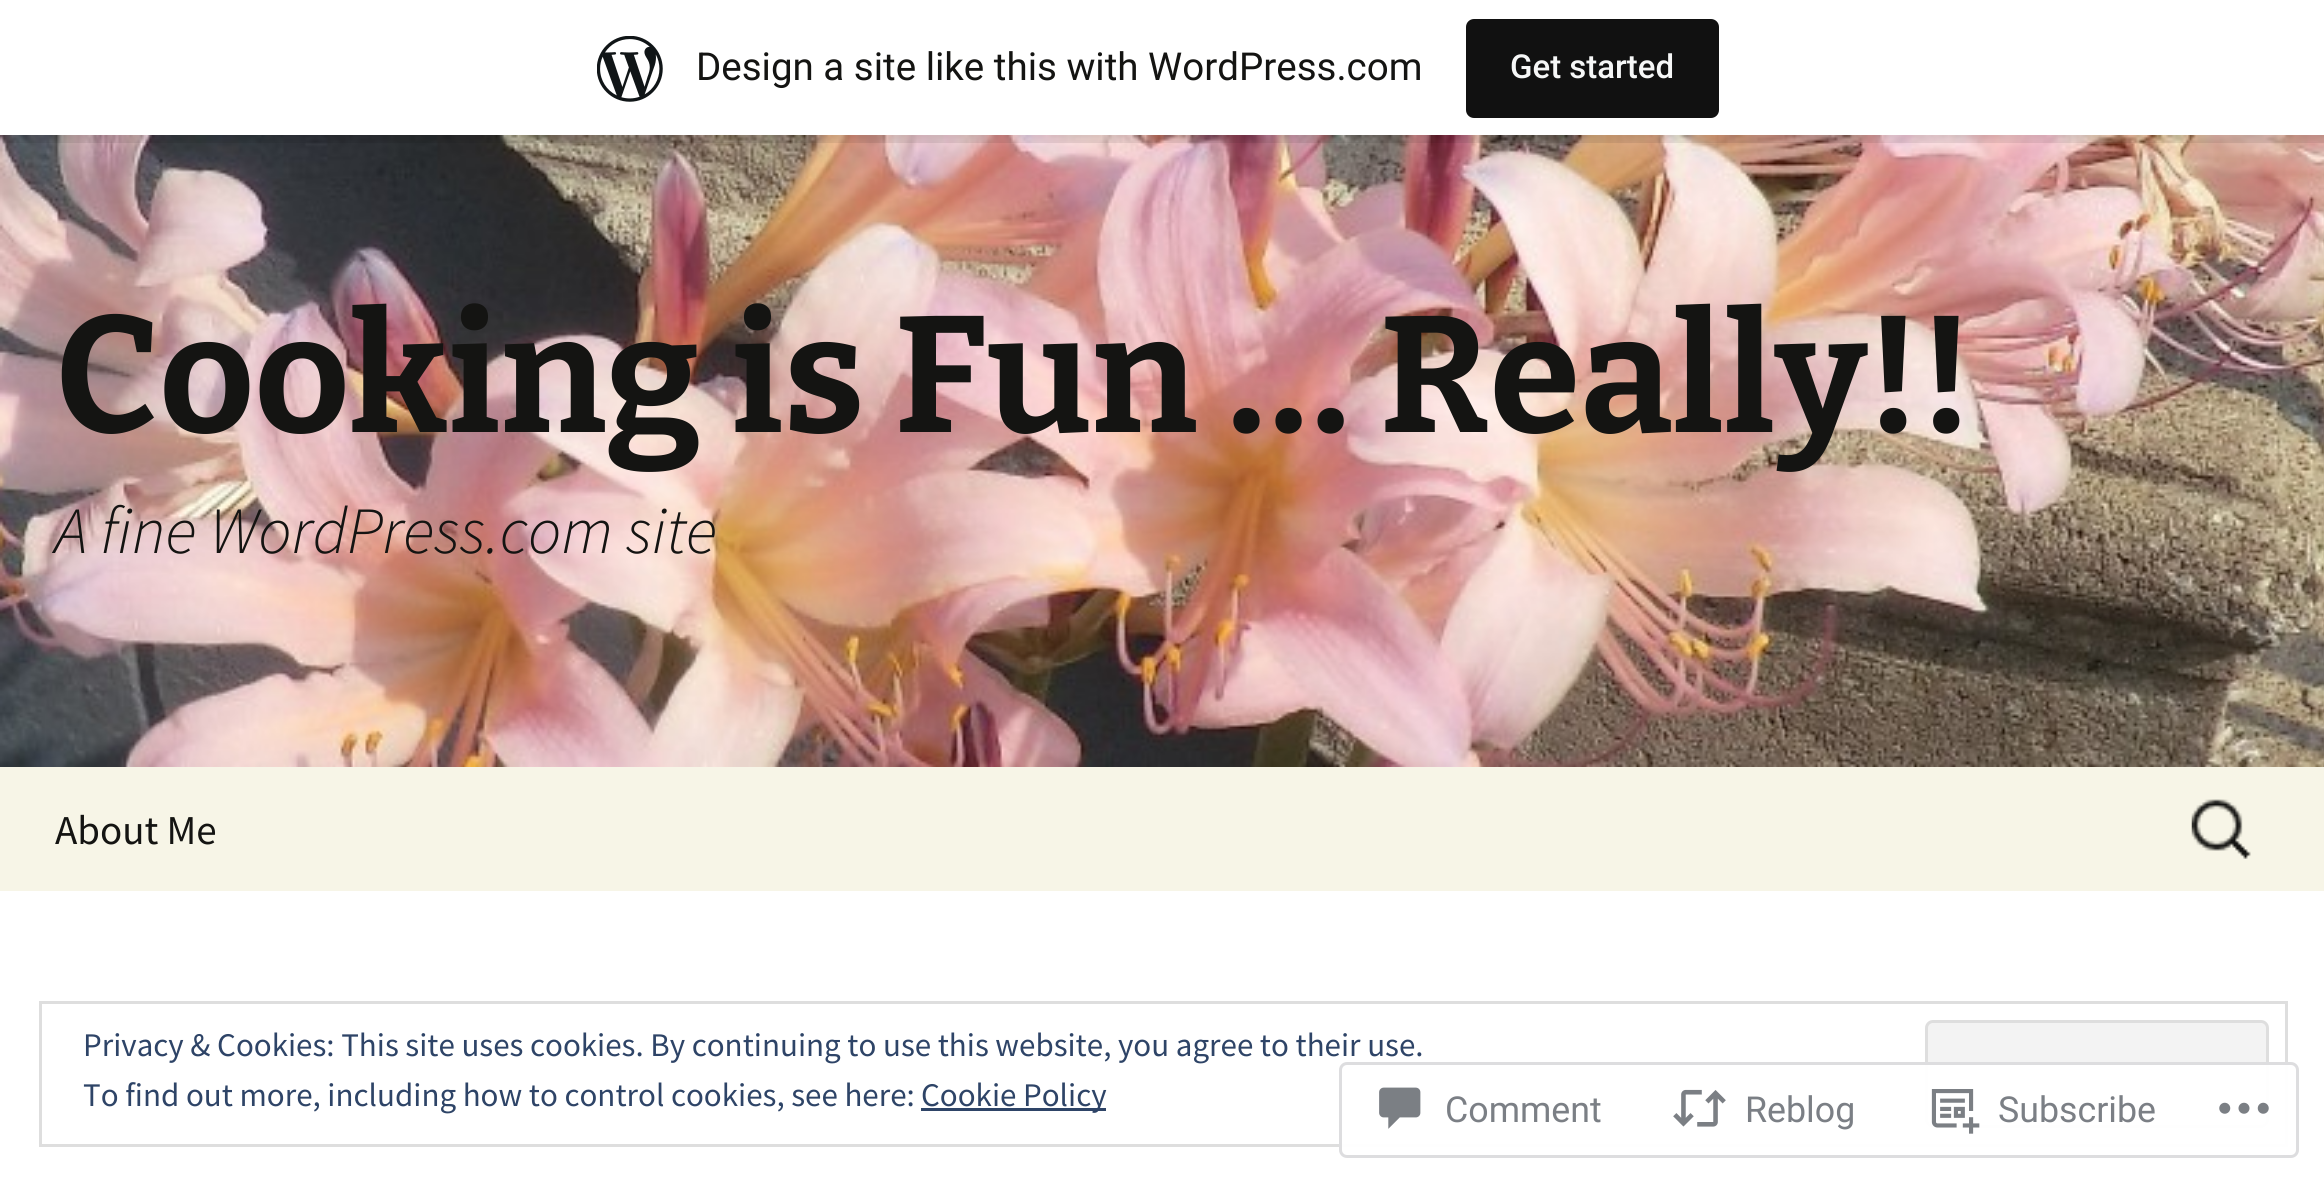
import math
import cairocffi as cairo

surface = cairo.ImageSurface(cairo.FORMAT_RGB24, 2324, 1185)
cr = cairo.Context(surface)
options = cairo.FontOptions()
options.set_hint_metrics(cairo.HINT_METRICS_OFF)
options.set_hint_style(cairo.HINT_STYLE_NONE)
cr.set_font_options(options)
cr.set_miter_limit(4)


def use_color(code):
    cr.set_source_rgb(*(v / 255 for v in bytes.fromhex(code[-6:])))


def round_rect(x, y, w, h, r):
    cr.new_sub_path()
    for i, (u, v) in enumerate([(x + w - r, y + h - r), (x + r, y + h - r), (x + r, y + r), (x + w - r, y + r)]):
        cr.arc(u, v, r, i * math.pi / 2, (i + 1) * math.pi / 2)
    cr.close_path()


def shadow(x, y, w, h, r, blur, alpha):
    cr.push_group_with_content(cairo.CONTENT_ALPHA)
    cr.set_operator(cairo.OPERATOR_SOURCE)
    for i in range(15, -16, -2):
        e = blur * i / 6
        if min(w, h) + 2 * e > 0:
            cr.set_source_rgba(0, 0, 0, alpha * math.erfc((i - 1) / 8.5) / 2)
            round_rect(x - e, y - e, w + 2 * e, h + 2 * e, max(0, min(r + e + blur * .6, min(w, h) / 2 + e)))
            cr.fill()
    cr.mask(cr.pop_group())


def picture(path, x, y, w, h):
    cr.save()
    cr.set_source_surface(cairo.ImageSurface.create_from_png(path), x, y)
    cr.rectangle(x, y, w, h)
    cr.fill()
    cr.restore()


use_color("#ffffff")
cr.paint()
picture("img2.png", 0, 135, 2324, 632)
use_color("#000000")
shadow(0, 3, 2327, 135, 0, 3, 0.05)
cr.set_source_rgba(0, 0, 0, 0.08)
cr.new_path()
cr.move_to(3, 135)
cr.line_to(3, 143)
cr.line_to(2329, 143)
cr.line_to(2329, 8)
cr.line_to(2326, 8)
cr.line_to(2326, 135)
cr.close_path()
cr.fill()
use_color("#ffffff")
cr.rectangle(0, 0, 2324, 135)
cr.fill()
picture("img1.png", 597, 36, 66, 66)
cr.select_font_face("Roboto")
cr.set_font_size(38.5)
use_color("#141412")
cr.move_to(696, 80)
cr.show_text("Design a site like this with WordPress.com")
use_color("#111111")
round_rect(1466, 19, 253, 99, 8)
cr.fill()
cr.select_font_face("Roboto Medium")
cr.set_font_size(33)
use_color("#f6f7f7")
cr.move_to(1510, 78)
cr.show_text("Get started")
cr.select_font_face("Bitter", cairo.FONT_SLANT_NORMAL, cairo.FONT_WEIGHT_BOLD)
cr.set_font_size(165)
use_color("#141412")
cr.move_to(55, 432)
cr.show_text("Cooking is Fun … Really!!")
cr.select_font_face("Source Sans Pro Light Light", cairo.FONT_SLANT_ITALIC)
cr.set_font_size(66)
cr.move_to(55, 553)
cr.show_text("A fine WordPress.com site")
use_color("#f7f5e7")
cr.rectangle(0, 767, 2324, 124)
cr.fill()
cr.select_font_face("Source Sans Pro")
cr.set_font_size(41)
use_color("#141412")
cr.move_to(55, 844)
cr.show_text("About Me")
picture("img3.png", 2191, 799, 60, 60)
cr.rectangle(40.5, 1002.5, 2246, 143)
use_color("#dedede")
cr.set_line_width(3)
cr.stroke()
cr.set_font_size(33)
use_color("#2e4467")
cr.move_to(83, 1056)
cr.show_text("Privacy & Cookies: This site uses cookies. By continuing to use this website, you agree to their use.")
use_color("#f3f3f3")
round_rect(1926.5, 1021.5, 341, 105, 6.5)
cr.fill_preserve()
use_color("#dedede")
cr.stroke()
use_color("#2e4467")
cr.move_to(83, 1106)
cr.show_text("To find out more, including how to control cookies, see here:")
cr.rectangle(921, 1108, 185, 3)
cr.fill()
cr.move_to(921, 1106)
cr.show_text("Cookie Policy")
cr.set_source_rgba(1, 1, 1, 0.98)
round_rect(1339, 1062, 960, 96, 8)
cr.fill()
round_rect(1340.5, 1063.5, 957, 93, 6.5)
cr.set_source_rgba(0.863, 0.863, 0.871, 0.98)
cr.stroke()
picture("img4.png", 1379, 1087, 42, 42)
cr.select_font_face("Roboto")
cr.set_font_size(35.75)
use_color("#7b7f85")
cr.move_to(1445, 1122)
cr.show_text("Comment")
picture("img5.png", 1673, 1089, 53, 38)
cr.move_to(1745, 1122)
cr.show_text("Reblog")
picture("img6.png", 1931, 1089, 49, 45)
cr.move_to(1998, 1122)
cr.show_text("Subscribe")
picture("img7.png", 2219, 1102, 50, 12)
surface.write_to_png("result.png")
